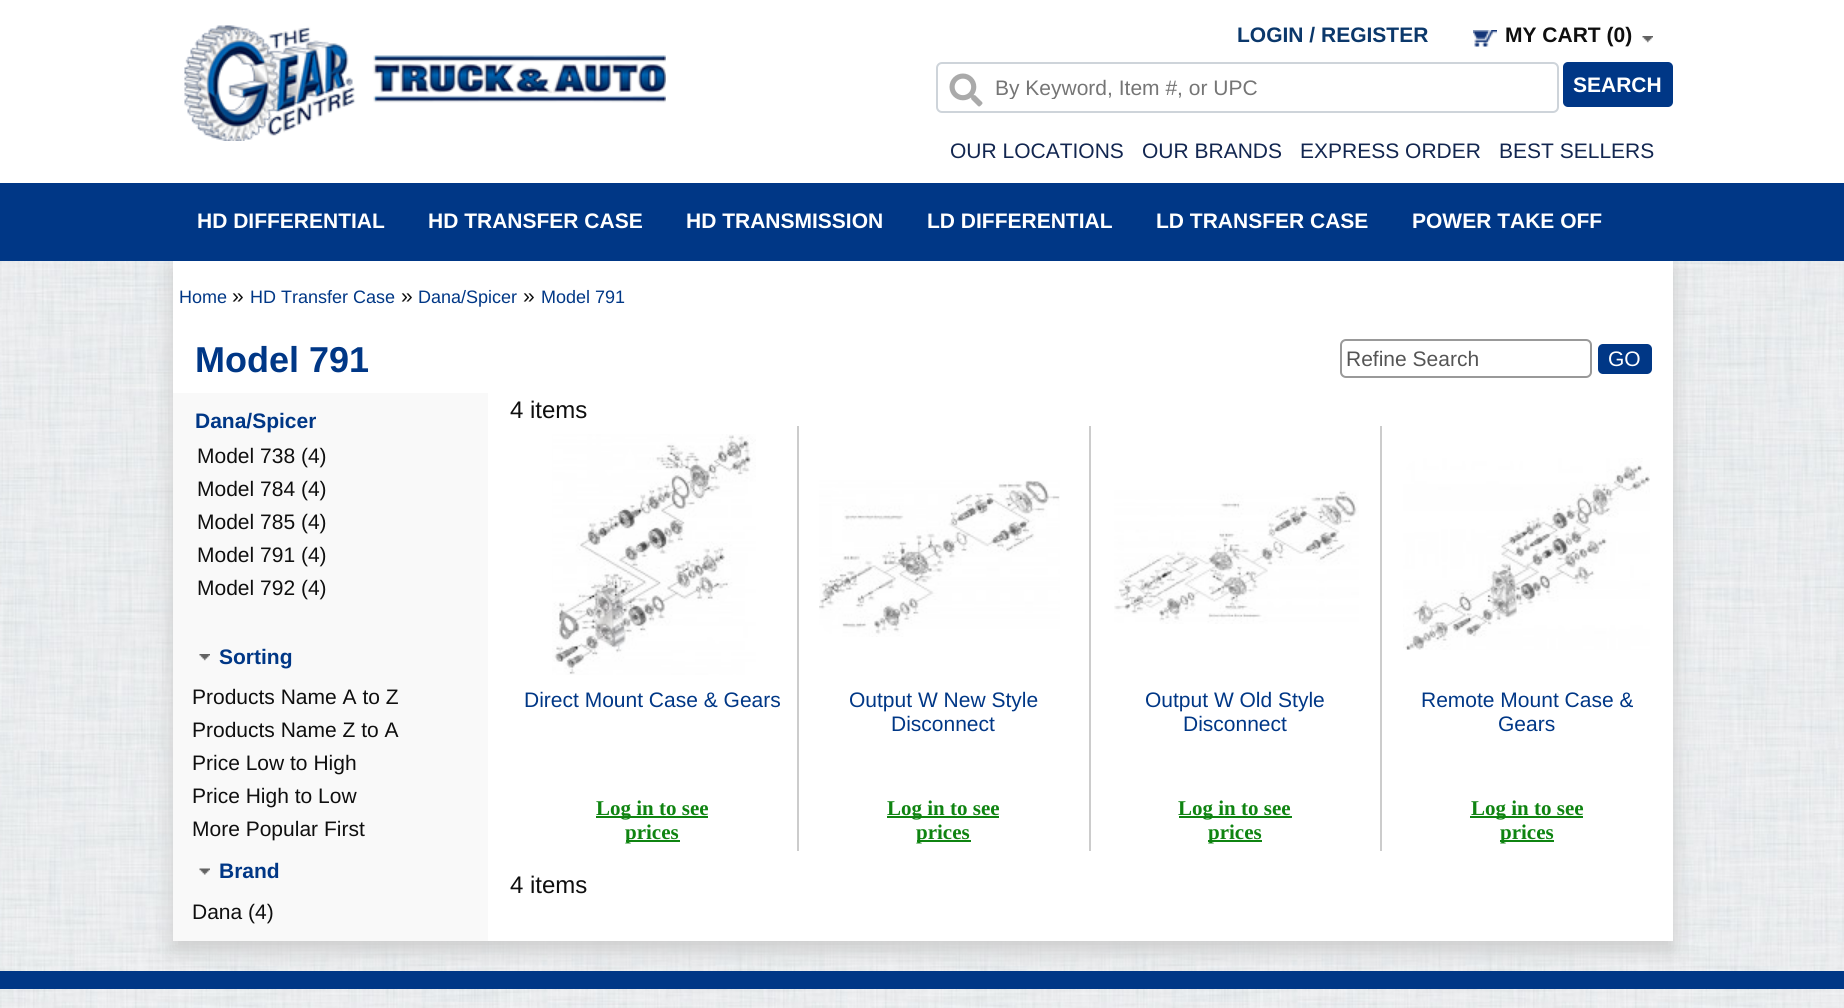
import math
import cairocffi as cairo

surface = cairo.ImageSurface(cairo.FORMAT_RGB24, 1844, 1008)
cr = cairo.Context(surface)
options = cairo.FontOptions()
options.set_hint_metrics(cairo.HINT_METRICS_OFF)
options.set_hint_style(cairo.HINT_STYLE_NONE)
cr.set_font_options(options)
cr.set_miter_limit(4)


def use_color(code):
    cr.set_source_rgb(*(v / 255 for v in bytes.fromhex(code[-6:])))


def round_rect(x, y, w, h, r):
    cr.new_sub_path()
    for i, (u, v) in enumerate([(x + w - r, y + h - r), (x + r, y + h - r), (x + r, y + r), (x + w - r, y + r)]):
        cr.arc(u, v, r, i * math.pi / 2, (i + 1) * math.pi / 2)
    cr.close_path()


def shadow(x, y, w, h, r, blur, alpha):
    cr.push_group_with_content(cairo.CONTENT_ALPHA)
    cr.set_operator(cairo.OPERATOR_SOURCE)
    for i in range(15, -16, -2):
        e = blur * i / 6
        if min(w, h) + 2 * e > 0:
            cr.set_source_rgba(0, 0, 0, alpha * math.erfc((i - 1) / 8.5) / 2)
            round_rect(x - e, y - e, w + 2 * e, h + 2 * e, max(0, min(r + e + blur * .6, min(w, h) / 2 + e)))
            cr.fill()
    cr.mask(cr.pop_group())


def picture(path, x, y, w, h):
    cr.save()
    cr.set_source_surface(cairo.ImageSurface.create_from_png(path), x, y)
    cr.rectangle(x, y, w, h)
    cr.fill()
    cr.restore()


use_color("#ffffff")
cr.paint()
picture("img1.png", 0, 261, 1844, 747)
picture("img2.png", 184, 25, 482, 116)
cr.select_font_face("Liberation Sans", cairo.FONT_SLANT_NORMAL, cairo.FONT_WEIGHT_BOLD)
cr.set_font_size(21)
use_color("#0b386b")
cr.move_to(1237, 42)
cr.show_text("LOGIN / REGISTER")
picture("img3.png", 1473, 30, 24, 17)
use_color("#0f0f0f")
cr.move_to(1505, 42)
cr.show_text("MY CART (0)")
picture("img4.png", 1642, 36, 11, 7)
round_rect(937, 63, 621, 49, 5)
use_color("#ced4da")
cr.stroke()
picture("img5.png", 949, 73, 34, 34)
cr.save()
cr.rectangle(995, 75, 555, 24)
cr.clip()
cr.select_font_face("Liberation Sans")
use_color("#757575")
cr.move_to(995, 95)
cr.show_text("By Keyword, Item #, or UPC")
cr.restore()
use_color("#003786")
round_rect(1563, 62, 110, 45, 5)
cr.fill()
use_color("#ffffff")
cr.move_to(1573, 92)
cr.show_text("SEARCH")
cr.select_font_face("Liberation Sans")
use_color("#122650")
cr.move_to(950, 158)
cr.show_text("OUR LOCATIONS")
cr.move_to(1142, 158)
cr.show_text("OUR BRANDS")
cr.move_to(1300, 158)
cr.show_text("EXPRESS ORDER")
cr.move_to(1499, 158)
cr.show_text("BEST SELLERS")
use_color("#cccccc")
shadow(173, 270, 1500, 680, 0, 10, 1)
use_color("#003786")
cr.rectangle(0, 183, 1844, 78)
cr.fill()
cr.select_font_face("Liberation Sans", cairo.FONT_SLANT_NORMAL, cairo.FONT_WEIGHT_BOLD)
use_color("#ffffff")
cr.move_to(197, 228)
cr.show_text("HD DIFFERENTIAL")
cr.move_to(428, 228)
cr.show_text("HD TRANSFER CASE")
cr.move_to(686, 228)
cr.show_text("HD TRANSMISSION")
cr.move_to(927, 228)
cr.show_text("LD DIFFERENTIAL")
cr.move_to(1156, 228)
cr.show_text("LD TRANSFER CASE")
cr.move_to(1412, 228)
cr.show_text("POWER TAKE OFF")
cr.rectangle(173, 261, 1500, 680)
cr.fill()
cr.select_font_face("Liberation Sans")
cr.set_font_size(18)
use_color("#003786")
cr.move_to(179, 303)
cr.show_text("Home")
cr.set_font_size(21)
use_color("#0f0f0f")
cr.move_to(232, 303)
cr.show_text("»")
cr.set_font_size(18)
use_color("#003786")
cr.move_to(250, 303)
cr.show_text("HD Transfer Case")
cr.set_font_size(21)
use_color("#0f0f0f")
cr.move_to(401, 303)
cr.show_text("»")
cr.set_font_size(18)
use_color("#003786")
cr.move_to(418, 303)
cr.show_text("Dana/Spicer")
cr.set_font_size(21)
use_color("#0f0f0f")
cr.move_to(523, 303)
cr.show_text("»")
cr.set_font_size(18)
use_color("#003786")
cr.move_to(541, 303)
cr.show_text("Model 791")
cr.select_font_face("Liberation Sans", cairo.FONT_SLANT_NORMAL, cairo.FONT_WEIGHT_BOLD)
cr.set_font_size(36)
cr.move_to(195, 372)
cr.show_text("Model 791")
round_rect(1341, 340, 250, 37, 5)
use_color("#999999")
cr.stroke()
cr.select_font_face("Liberation Sans")
cr.set_font_size(21)
use_color("#555555")
cr.move_to(1346, 366)
cr.show_text("Refine Search")
use_color("#003786")
round_rect(1598, 344, 54, 30, 5)
cr.fill()
use_color("#ffffff")
cr.move_to(1608, 366)
cr.show_text("GO")
use_color("#f9f9f9")
cr.rectangle(173, 393, 315, 548)
cr.fill()
cr.select_font_face("Liberation Sans", cairo.FONT_SLANT_NORMAL, cairo.FONT_WEIGHT_BOLD)
use_color("#003786")
cr.move_to(195, 428)
cr.show_text("Dana/Spicer")
cr.select_font_face("Liberation Sans")
use_color("#0f0f0f")
cr.move_to(197, 463)
cr.show_text("Model 738 (4)")
cr.move_to(197, 496)
cr.show_text("Model 784 (4)")
cr.move_to(197, 529)
cr.show_text("Model 785 (4)")
cr.move_to(197, 562)
cr.show_text("Model 791 (4)")
cr.move_to(197, 595)
cr.show_text("Model 792 (4)")
picture("img6.png", 199, 654, 11, 7)
cr.select_font_face("Liberation Sans", cairo.FONT_SLANT_NORMAL, cairo.FONT_WEIGHT_BOLD)
use_color("#003786")
cr.move_to(219, 664)
cr.show_text("Sorting")
cr.select_font_face("Liberation Sans")
use_color("#0f0f0f")
cr.move_to(192, 704)
cr.show_text("Products Name A to Z")
cr.move_to(192, 737)
cr.show_text("Products Name Z to A")
cr.move_to(192, 770)
cr.show_text("Price Low to High")
cr.move_to(192, 803)
cr.show_text("Price High to Low")
cr.move_to(192, 836)
cr.show_text("More Popular First")
picture("img7.png", 199, 868, 11, 7)
cr.select_font_face("Liberation Sans", cairo.FONT_SLANT_NORMAL, cairo.FONT_WEIGHT_BOLD)
use_color("#003786")
cr.move_to(219, 878)
cr.show_text("Brand")
cr.select_font_face("Liberation Sans")
use_color("#0f0f0f")
cr.move_to(192, 919)
cr.show_text("Dana (4)")
cr.set_font_size(24)
cr.move_to(510, 418)
cr.show_text("4 items")
use_color("#cccccc")
cr.rectangle(797, 426, 2, 425)
cr.fill()
picture("img8.png", 552, 434, 204, 241)
cr.set_font_size(21)
use_color("#003786")
cr.move_to(524, 707)
cr.show_text("Direct Mount Case & Gears")
use_color("#0f8411")
cr.rectangle(596, 816, 112, 2)
cr.fill()
cr.select_font_face("Liberation Serif", cairo.FONT_SLANT_NORMAL, cairo.FONT_WEIGHT_BOLD)
cr.move_to(596, 815)
cr.show_text("Log in to see")
cr.rectangle(626, 840, 54, 2)
cr.fill()
cr.move_to(625, 839)
cr.show_text("prices")
use_color("#cccccc")
cr.rectangle(1089, 426, 2, 425)
cr.fill()
picture("img9.png", 819, 480, 241, 157)
cr.select_font_face("Liberation Sans")
use_color("#003786")
cr.move_to(849, 707)
cr.show_text("Output W New Style")
cr.move_to(891, 731)
cr.show_text("Disconnect")
use_color("#0f8411")
cr.rectangle(887, 816, 112, 2)
cr.fill()
cr.select_font_face("Liberation Serif", cairo.FONT_SLANT_NORMAL, cairo.FONT_WEIGHT_BOLD)
cr.move_to(887, 815)
cr.show_text("Log in to see")
cr.rectangle(917, 840, 54, 2)
cr.fill()
cr.move_to(916, 839)
cr.show_text("prices")
use_color("#cccccc")
cr.rectangle(1380, 426, 2, 425)
cr.fill()
picture("img10.png", 1114, 490, 245, 134)
cr.select_font_face("Liberation Sans")
use_color("#003786")
cr.move_to(1145, 707)
cr.show_text("Output W Old Style")
cr.move_to(1183, 731)
cr.show_text("Disconnect")
use_color("#0f8411")
cr.rectangle(1179, 816, 113, 2)
cr.fill()
cr.select_font_face("Liberation Serif", cairo.FONT_SLANT_NORMAL, cairo.FONT_WEIGHT_BOLD)
cr.move_to(1178, 815)
cr.show_text("Log in to see")
cr.rectangle(1208, 840, 54, 2)
cr.fill()
cr.move_to(1208, 839)
cr.show_text("prices")
picture("img11.png", 1403, 458, 247, 192)
cr.select_font_face("Liberation Sans")
use_color("#003786")
cr.move_to(1421, 707)
cr.show_text("Remote Mount Case &")
cr.move_to(1498, 731)
cr.show_text("Gears")
use_color("#0f8411")
cr.rectangle(1470, 816, 113, 2)
cr.fill()
cr.select_font_face("Liberation Serif", cairo.FONT_SLANT_NORMAL, cairo.FONT_WEIGHT_BOLD)
cr.move_to(1471, 815)
cr.show_text("Log in to see")
cr.rectangle(1500, 840, 54, 2)
cr.fill()
cr.move_to(1500, 839)
cr.show_text("prices")
cr.select_font_face("Liberation Sans")
cr.set_font_size(24)
use_color("#0f0f0f")
cr.move_to(510, 893)
cr.show_text("4 items")
use_color("#003786")
cr.rectangle(0, 971, 1844, 18)
cr.fill()
surface.write_to_png("result.png")
